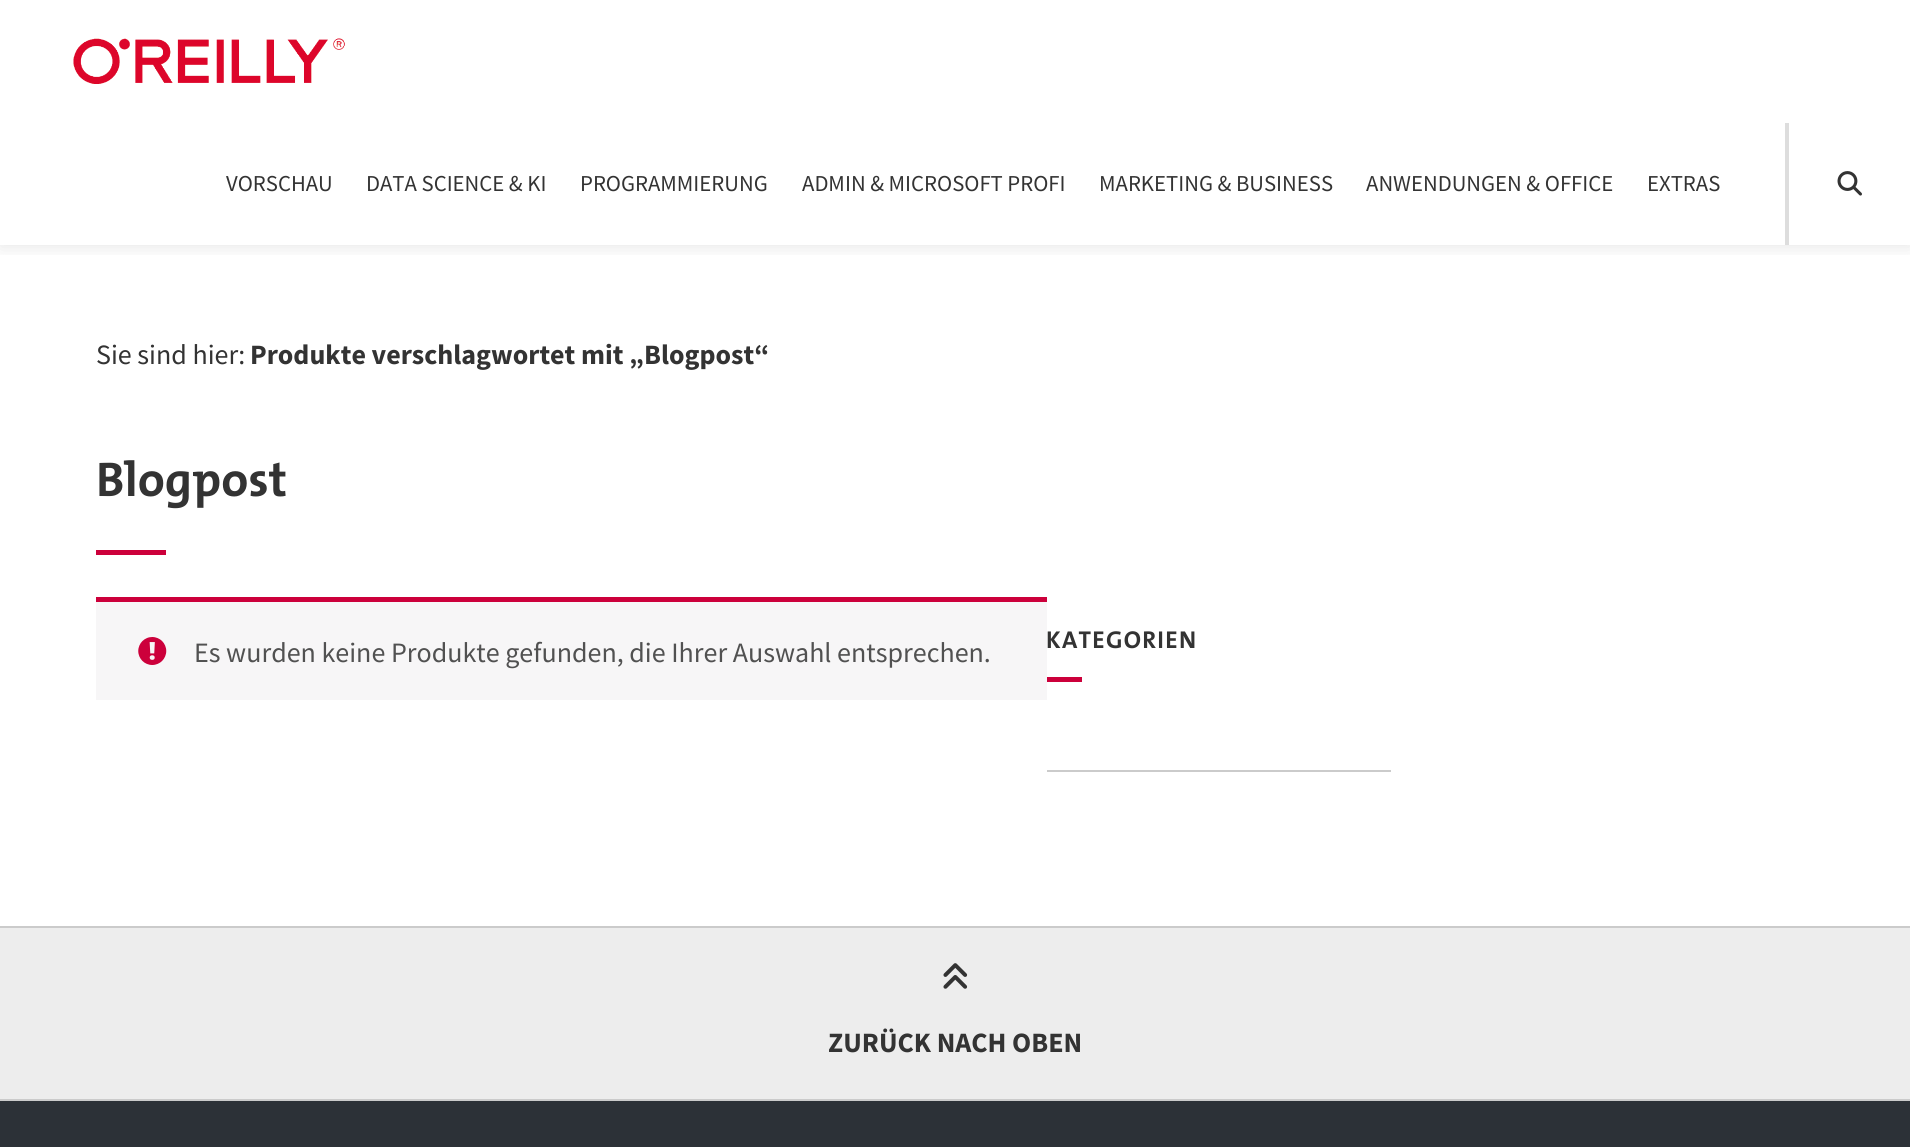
import math
import cairocffi as cairo

surface = cairo.ImageSurface(cairo.FORMAT_RGB24, 1910, 1147)
cr = cairo.Context(surface)
options = cairo.FontOptions()
options.set_hint_metrics(cairo.HINT_METRICS_OFF)
options.set_hint_style(cairo.HINT_STYLE_NONE)
cr.set_font_options(options)
cr.set_miter_limit(4)


def use_color(code):
    cr.set_source_rgb(*(v / 255 for v in bytes.fromhex(code[-6:])))


def spaced_text(x, y, s, letter, word):
    cr.move_to(x, y)
    for ch in s:
        cr.show_text(ch)
        cr.rel_move_to(letter + word * (ch == ' '), 0)


def round_rect(x, y, w, h, r):
    cr.new_sub_path()
    for i, (u, v) in enumerate([(x + w - r, y + h - r), (x + r, y + h - r), (x + r, y + r), (x + w - r, y + r)]):
        cr.arc(u, v, r, i * math.pi / 2, (i + 1) * math.pi / 2)
    cr.close_path()


def shadow(x, y, w, h, r, blur, alpha):
    cr.push_group_with_content(cairo.CONTENT_ALPHA)
    cr.set_operator(cairo.OPERATOR_SOURCE)
    for i in range(15, -16, -2):
        e = blur * i / 6
        if min(w, h) + 2 * e > 0:
            cr.set_source_rgba(0, 0, 0, alpha * math.erfc((i - 1) / 8.5) / 2)
            round_rect(x - e, y - e, w + 2 * e, h + 2 * e, max(0, min(r + e + blur * .6, min(w, h) / 2 + e)))
            cr.fill()
    cr.mask(cr.pop_group())


def picture(path, x, y, w, h):
    cr.save()
    cr.set_source_surface(cairo.ImageSurface.create_from_png(path), x, y)
    cr.rectangle(x, y, w, h)
    cr.fill()
    cr.restore()


use_color("#ffffff")
cr.paint()
cr.save()
cr.rectangle(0, 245, 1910, 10)
cr.clip()
use_color("#000000")
shadow(0, 2, 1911, 245, 0, 9, 0.1)
cr.restore()
picture("img1.png", 73, 38, 272, 46)
cr.select_font_face("Source Sans Pro")
cr.set_font_size(22.75)
use_color("#333333")
cr.move_to(226, 191)
cr.show_text("VORSCHAU")
cr.move_to(366, 191)
cr.show_text("DATA SCIENCE & KI")
cr.move_to(580, 191)
cr.show_text("PROGRAMMIERUNG")
cr.move_to(802, 191)
cr.show_text("ADMIN & MICROSOFT PROFI")
cr.move_to(1099, 191)
cr.show_text("MARKETING & BUSINESS")
cr.move_to(1366, 191)
cr.show_text("ANWENDUNGEN & OFFICE")
cr.move_to(1647, 191)
cr.show_text("EXTRAS")
use_color("#dddddd")
cr.rectangle(1785, 123, 4, 122)
cr.fill()
picture("img2.png", 1837, 171, 25, 25)
cr.set_font_size(28)
use_color("#333333")
cr.move_to(96, 364)
cr.show_text("Sie sind hier:")
cr.select_font_face("Source Sans Pro", cairo.FONT_SLANT_NORMAL, cairo.FONT_WEIGHT_BOLD)
cr.move_to(250, 364)
cr.show_text("Produkte verschlagwortet mit „Blogpost“")
cr.select_font_face("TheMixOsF", cairo.FONT_SLANT_NORMAL, cairo.FONT_WEIGHT_BOLD)
cr.set_font_size(49)
cr.move_to(96, 496)
cr.show_text("Blogpost")
use_color("#cc003b")
cr.rectangle(96, 550, 70, 5)
cr.fill()
use_color("#f7f6f7")
cr.rectangle(96, 602, 951, 98)
cr.fill()
use_color("#cc003b")
cr.rectangle(96, 597, 951, 5)
cr.fill()
picture("img3.png", 138, 637, 29, 28)
cr.select_font_face("Source Sans Pro")
cr.set_font_size(28)
use_color("#515151")
cr.move_to(194, 662)
cr.show_text("Es wurden keine Produkte gefunden, die Ihrer Auswahl entsprechen.")
use_color("#cbcbcb")
cr.rectangle(1047, 770, 344, 2)
cr.fill()
cr.select_font_face("TheMixOsF", cairo.FONT_SLANT_NORMAL, cairo.FONT_WEIGHT_BOLD)
cr.set_font_size(24.5)
use_color("#333333")
spaced_text(1046, 648, "KATEGORIEN", 1.25, 0)
use_color("#cc003b")
cr.rectangle(1047, 677, 35, 5)
cr.fill()
use_color("#ededed")
cr.rectangle(0, 928, 1910, 171)
cr.fill()
use_color("#cbcbcb")
cr.rectangle(0, 926, 1910, 2)
cr.fill()
cr.rectangle(0, 1099, 1910, 2)
cr.fill()
picture("img4.png", 943, 963, 25, 26)
cr.select_font_face("Source Sans Pro", cairo.FONT_SLANT_NORMAL, cairo.FONT_WEIGHT_BOLD)
cr.set_font_size(28)
use_color("#333333")
cr.move_to(828, 1052)
cr.show_text("ZURÜCK NACH OBEN")
use_color("#2c3137")
cr.rectangle(0, 1101, 1910, 46)
cr.fill()
surface.write_to_png("result.png")
